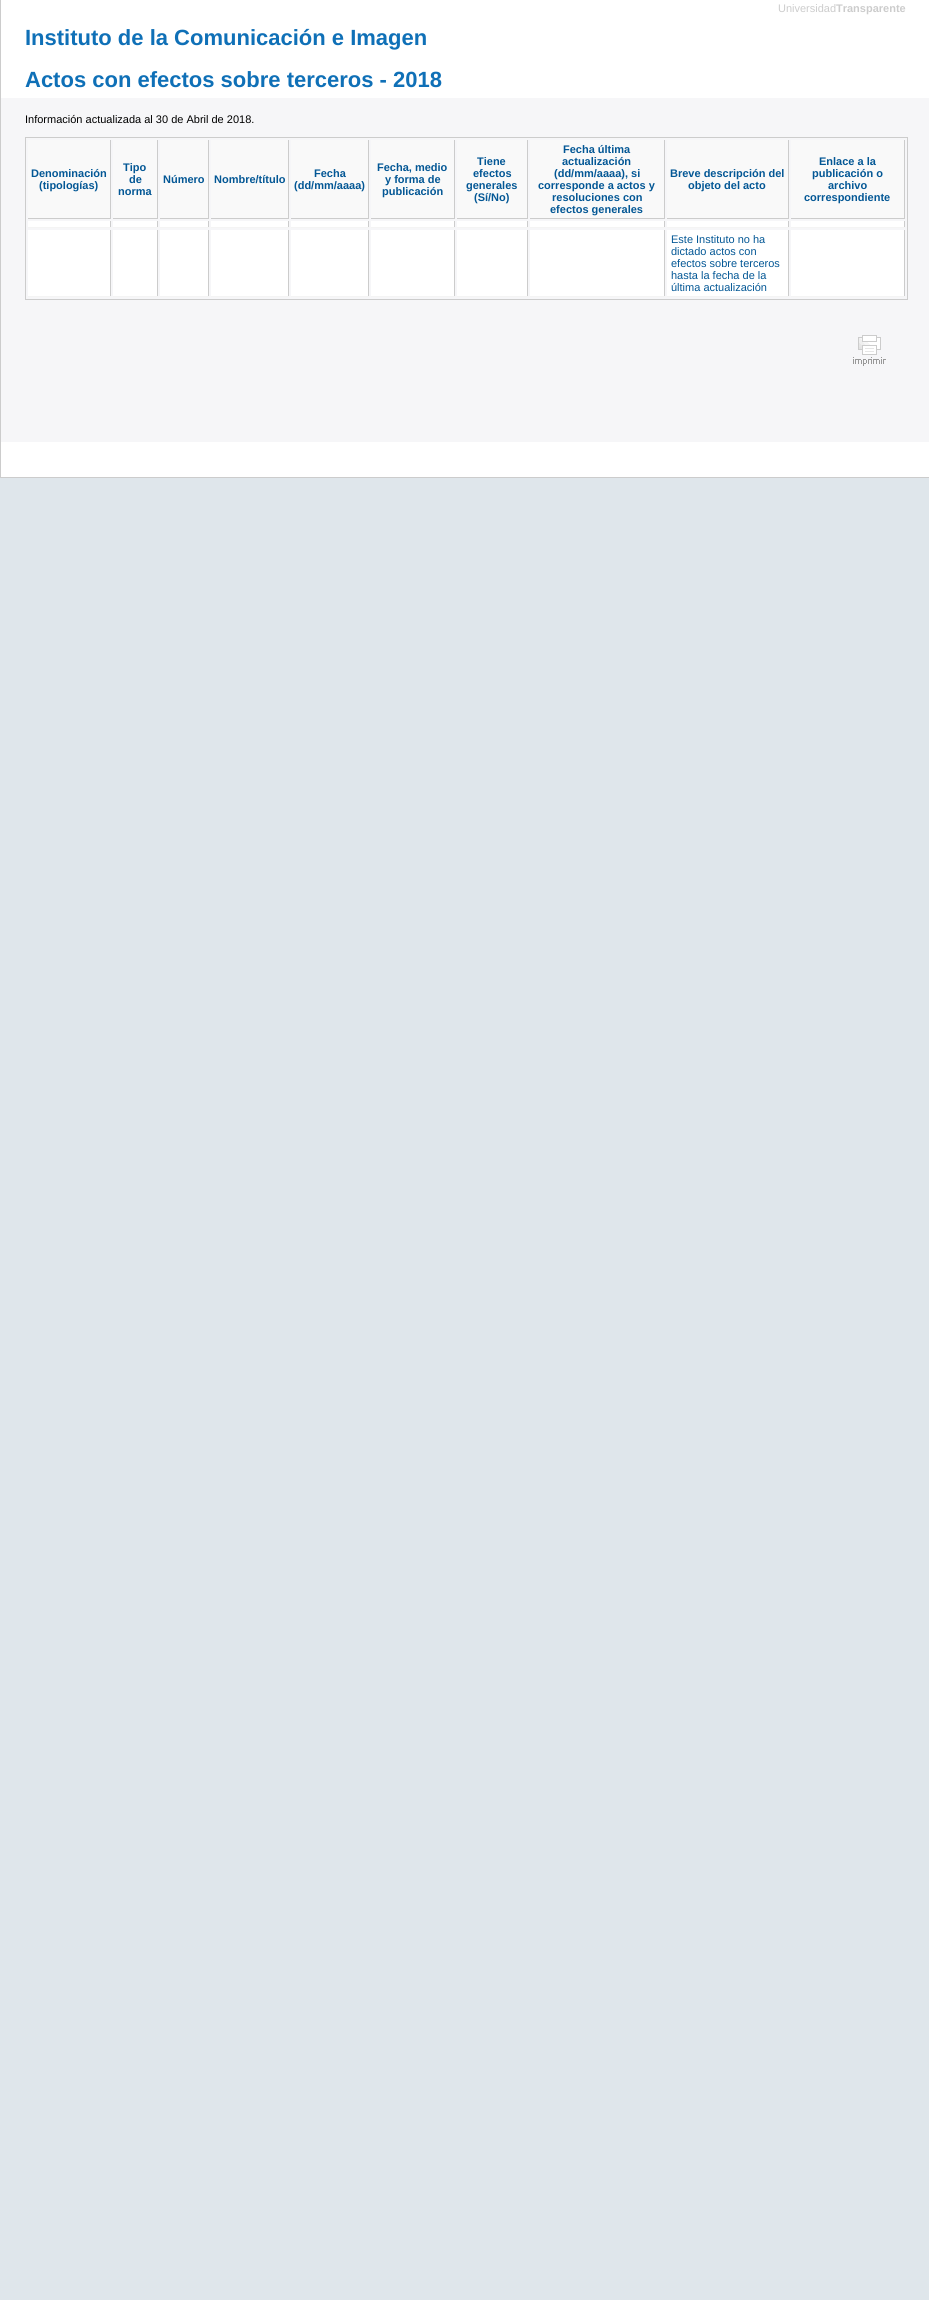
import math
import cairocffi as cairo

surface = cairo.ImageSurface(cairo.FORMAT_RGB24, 929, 2300)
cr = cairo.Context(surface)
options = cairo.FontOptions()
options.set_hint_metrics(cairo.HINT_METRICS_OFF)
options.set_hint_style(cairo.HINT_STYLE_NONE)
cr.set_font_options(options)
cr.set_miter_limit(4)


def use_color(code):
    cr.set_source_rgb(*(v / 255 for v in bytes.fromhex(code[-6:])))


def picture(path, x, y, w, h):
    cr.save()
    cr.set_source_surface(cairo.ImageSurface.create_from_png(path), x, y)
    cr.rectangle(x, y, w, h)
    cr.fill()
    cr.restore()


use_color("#dfe6eb")
cr.paint()
use_color("#ffffff")
cr.rectangle(1, 0, 928, 98)
cr.fill()
use_color("#cccccc")
cr.rectangle(0, 0, 1, 442)
cr.fill()
cr.select_font_face("Liberation Sans")
cr.set_font_size(11)
cr.move_to(778, 12)
cr.show_text("Universidad")
cr.select_font_face("Liberation Sans", cairo.FONT_SLANT_NORMAL, cairo.FONT_WEIGHT_BOLD)
cr.move_to(836, 12)
cr.show_text("Transparente")
cr.set_font_size(22)
use_color("#0f70b7")
cr.move_to(25, 45)
cr.show_text("Instituto de la Comunicación e Imagen")
cr.move_to(25, 87)
cr.show_text("Actos con efectos sobre terceros - 2018")
use_color("#f6f6f8")
cr.rectangle(1, 98, 928, 344)
cr.fill()
cr.select_font_face("Liberation Sans")
cr.set_font_size(11)
use_color("#000000")
cr.move_to(25, 123)
cr.show_text("Información actualizada al 30 de Abril de 2018.")
cr.rectangle(25.5, 137.5, 882, 162)
use_color("#cccccc")
cr.set_line_width(1)
cr.stroke()
use_color("#f9f9f9")
cr.rectangle(28, 140, 82, 78)
cr.fill()
use_color("#cccccc")
cr.rectangle(110, 140, 1, 79)
cr.fill()
cr.rectangle(28, 218, 83, 1)
cr.fill()
cr.select_font_face("Liberation Sans", cairo.FONT_SLANT_NORMAL, cairo.FONT_WEIGHT_BOLD)
use_color("#035795")
cr.move_to(31, 177)
cr.show_text("Denominación")
cr.move_to(39, 189)
cr.show_text("(tipologías)")
use_color("#f9f9f9")
cr.rectangle(113, 140, 44, 78)
cr.fill()
use_color("#cccccc")
cr.rectangle(157, 140, 1, 79)
cr.fill()
cr.rectangle(113, 218, 45, 1)
cr.fill()
use_color("#035795")
cr.move_to(123, 171)
cr.show_text("Tipo")
cr.move_to(129, 183)
cr.show_text("de")
cr.move_to(118, 195)
cr.show_text("norma")
use_color("#f9f9f9")
cr.rectangle(160, 140, 48, 78)
cr.fill()
use_color("#cccccc")
cr.rectangle(208, 140, 1, 79)
cr.fill()
cr.rectangle(160, 218, 49, 1)
cr.fill()
use_color("#035795")
cr.move_to(163, 183)
cr.show_text("Número")
use_color("#f9f9f9")
cr.rectangle(211, 140, 77, 78)
cr.fill()
use_color("#cccccc")
cr.rectangle(288, 140, 1, 79)
cr.fill()
cr.rectangle(211, 218, 78, 1)
cr.fill()
use_color("#035795")
cr.move_to(214, 183)
cr.show_text("Nombre/título")
use_color("#f9f9f9")
cr.rectangle(291, 140, 77, 78)
cr.fill()
use_color("#cccccc")
cr.rectangle(368, 140, 1, 79)
cr.fill()
cr.rectangle(291, 218, 78, 1)
cr.fill()
use_color("#035795")
cr.move_to(314, 177)
cr.show_text("Fecha")
cr.move_to(294, 189)
cr.show_text("(dd/mm/aaaa)")
use_color("#f9f9f9")
cr.rectangle(371, 140, 83, 78)
cr.fill()
use_color("#cccccc")
cr.rectangle(454, 140, 1, 79)
cr.fill()
cr.rectangle(371, 218, 84, 1)
cr.fill()
use_color("#035795")
cr.move_to(377, 171)
cr.show_text("Fecha, medio")
cr.move_to(385, 183)
cr.show_text("y forma de")
cr.move_to(382, 195)
cr.show_text("publicación")
use_color("#f9f9f9")
cr.rectangle(457, 140, 70, 78)
cr.fill()
use_color("#cccccc")
cr.rectangle(527, 140, 1, 79)
cr.fill()
cr.rectangle(457, 218, 71, 1)
cr.fill()
use_color("#035795")
cr.move_to(477, 165)
cr.show_text("Tiene")
cr.move_to(473, 177)
cr.show_text("efectos")
cr.move_to(466, 189)
cr.show_text("generales")
cr.move_to(474, 201)
cr.show_text("(Sí/No)")
use_color("#f9f9f9")
cr.rectangle(530, 140, 134, 78)
cr.fill()
use_color("#cccccc")
cr.rectangle(664, 140, 1, 79)
cr.fill()
cr.rectangle(530, 218, 135, 1)
cr.fill()
use_color("#035795")
cr.move_to(563, 153)
cr.show_text("Fecha última")
cr.move_to(562, 165)
cr.show_text("actualización")
cr.move_to(554, 177)
cr.show_text("(dd/mm/aaaa), si")
cr.move_to(538, 189)
cr.show_text("corresponde a actos y")
cr.move_to(552, 201)
cr.show_text("resoluciones con")
cr.move_to(550, 213)
cr.show_text("efectos generales")
use_color("#f9f9f9")
cr.rectangle(667, 140, 121, 78)
cr.fill()
use_color("#cccccc")
cr.rectangle(788, 140, 1, 79)
cr.fill()
cr.rectangle(667, 218, 122, 1)
cr.fill()
use_color("#035795")
cr.move_to(670, 177)
cr.show_text("Breve descripción del")
cr.move_to(688, 189)
cr.show_text("objeto del acto")
use_color("#f9f9f9")
cr.rectangle(791, 140, 113, 78)
cr.fill()
use_color("#cccccc")
cr.rectangle(904, 140, 1, 79)
cr.fill()
cr.rectangle(791, 218, 114, 1)
cr.fill()
use_color("#035795")
cr.move_to(819, 165)
cr.show_text("Enlace a la")
cr.move_to(812, 177)
cr.show_text("publicación o")
cr.move_to(828, 189)
cr.show_text("archivo")
cr.move_to(804, 201)
cr.show_text("correspondiente")
use_color("#ffffff")
cr.rectangle(28, 221, 83, 6)
cr.fill()
use_color("#cccccc")
cr.rectangle(110, 221, 1, 7)
cr.fill()
use_color("#f4f4f4")
cr.rectangle(28, 227, 83, 1)
cr.fill()
use_color("#ffffff")
cr.rectangle(113, 221, 45, 6)
cr.fill()
use_color("#cccccc")
cr.rectangle(157, 221, 1, 7)
cr.fill()
use_color("#f4f4f4")
cr.rectangle(113, 227, 45, 1)
cr.fill()
use_color("#ffffff")
cr.rectangle(160, 221, 49, 6)
cr.fill()
use_color("#cccccc")
cr.rectangle(208, 221, 1, 7)
cr.fill()
use_color("#f4f4f4")
cr.rectangle(160, 227, 49, 1)
cr.fill()
use_color("#ffffff")
cr.rectangle(211, 221, 78, 6)
cr.fill()
use_color("#cccccc")
cr.rectangle(288, 221, 1, 7)
cr.fill()
use_color("#f4f4f4")
cr.rectangle(211, 227, 78, 1)
cr.fill()
use_color("#ffffff")
cr.rectangle(291, 221, 78, 6)
cr.fill()
use_color("#cccccc")
cr.rectangle(368, 221, 1, 7)
cr.fill()
use_color("#f4f4f4")
cr.rectangle(291, 227, 78, 1)
cr.fill()
use_color("#ffffff")
cr.rectangle(371, 221, 84, 6)
cr.fill()
use_color("#cccccc")
cr.rectangle(454, 221, 1, 7)
cr.fill()
use_color("#f4f4f4")
cr.rectangle(371, 227, 84, 1)
cr.fill()
use_color("#ffffff")
cr.rectangle(457, 221, 71, 6)
cr.fill()
use_color("#cccccc")
cr.rectangle(527, 221, 1, 7)
cr.fill()
use_color("#f4f4f4")
cr.rectangle(457, 227, 71, 1)
cr.fill()
use_color("#ffffff")
cr.rectangle(530, 221, 135, 6)
cr.fill()
use_color("#cccccc")
cr.rectangle(664, 221, 1, 7)
cr.fill()
use_color("#f4f4f4")
cr.rectangle(530, 227, 135, 1)
cr.fill()
use_color("#ffffff")
cr.rectangle(667, 221, 122, 6)
cr.fill()
use_color("#cccccc")
cr.rectangle(788, 221, 1, 7)
cr.fill()
use_color("#f4f4f4")
cr.rectangle(667, 227, 122, 1)
cr.fill()
use_color("#ffffff")
cr.rectangle(791, 221, 114, 6)
cr.fill()
use_color("#cccccc")
cr.rectangle(904, 221, 1, 7)
cr.fill()
use_color("#f4f4f4")
cr.rectangle(791, 227, 114, 1)
cr.fill()
use_color("#ffffff")
cr.rectangle(28, 230, 82, 66)
cr.fill()
use_color("#cccccc")
cr.rectangle(110, 230, 1, 67)
cr.fill()
use_color("#f4f4f4")
cr.rectangle(28, 296, 83, 1)
cr.fill()
use_color("#ffffff")
cr.rectangle(113, 230, 44, 66)
cr.fill()
use_color("#cccccc")
cr.rectangle(157, 230, 1, 67)
cr.fill()
use_color("#f4f4f4")
cr.rectangle(113, 296, 45, 1)
cr.fill()
use_color("#ffffff")
cr.rectangle(160, 230, 48, 66)
cr.fill()
use_color("#cccccc")
cr.rectangle(208, 230, 1, 67)
cr.fill()
use_color("#f4f4f4")
cr.rectangle(160, 296, 49, 1)
cr.fill()
use_color("#ffffff")
cr.rectangle(211, 230, 77, 66)
cr.fill()
use_color("#cccccc")
cr.rectangle(288, 230, 1, 67)
cr.fill()
use_color("#f4f4f4")
cr.rectangle(211, 296, 78, 1)
cr.fill()
use_color("#ffffff")
cr.rectangle(291, 230, 77, 66)
cr.fill()
use_color("#cccccc")
cr.rectangle(368, 230, 1, 67)
cr.fill()
use_color("#f4f4f4")
cr.rectangle(291, 296, 78, 1)
cr.fill()
use_color("#ffffff")
cr.rectangle(371, 230, 83, 66)
cr.fill()
use_color("#cccccc")
cr.rectangle(454, 230, 1, 67)
cr.fill()
use_color("#f4f4f4")
cr.rectangle(371, 296, 84, 1)
cr.fill()
use_color("#ffffff")
cr.rectangle(457, 230, 70, 66)
cr.fill()
use_color("#cccccc")
cr.rectangle(527, 230, 1, 67)
cr.fill()
use_color("#f4f4f4")
cr.rectangle(457, 296, 71, 1)
cr.fill()
use_color("#ffffff")
cr.rectangle(530, 230, 134, 66)
cr.fill()
use_color("#cccccc")
cr.rectangle(664, 230, 1, 67)
cr.fill()
use_color("#f4f4f4")
cr.rectangle(530, 296, 135, 1)
cr.fill()
use_color("#ffffff")
cr.rectangle(667, 230, 121, 66)
cr.fill()
use_color("#cccccc")
cr.rectangle(788, 230, 1, 67)
cr.fill()
use_color("#f4f4f4")
cr.rectangle(667, 296, 122, 1)
cr.fill()
cr.select_font_face("Liberation Sans")
use_color("#035795")
cr.move_to(671, 243)
cr.show_text("Este Instituto no ha")
cr.move_to(671, 255)
cr.show_text("dictado actos con")
cr.move_to(671, 267)
cr.show_text("efectos sobre terceros")
cr.move_to(671, 279)
cr.show_text("hasta la fecha de la")
cr.move_to(671, 291)
cr.show_text("última actualización")
use_color("#ffffff")
cr.rectangle(791, 230, 113, 66)
cr.fill()
use_color("#cccccc")
cr.rectangle(904, 230, 1, 67)
cr.fill()
use_color("#f4f4f4")
cr.rectangle(791, 296, 114, 1)
cr.fill()
picture("img1.png", 853, 335, 33, 31)
use_color("#ffffff")
cr.rectangle(1, 442, 928, 35)
cr.fill()
use_color("#cccccc")
cr.rectangle(0, 477, 929, 1)
cr.fill()
cr.rectangle(0, 442, 1, 36)
cr.fill()
surface.write_to_png("result.png")
